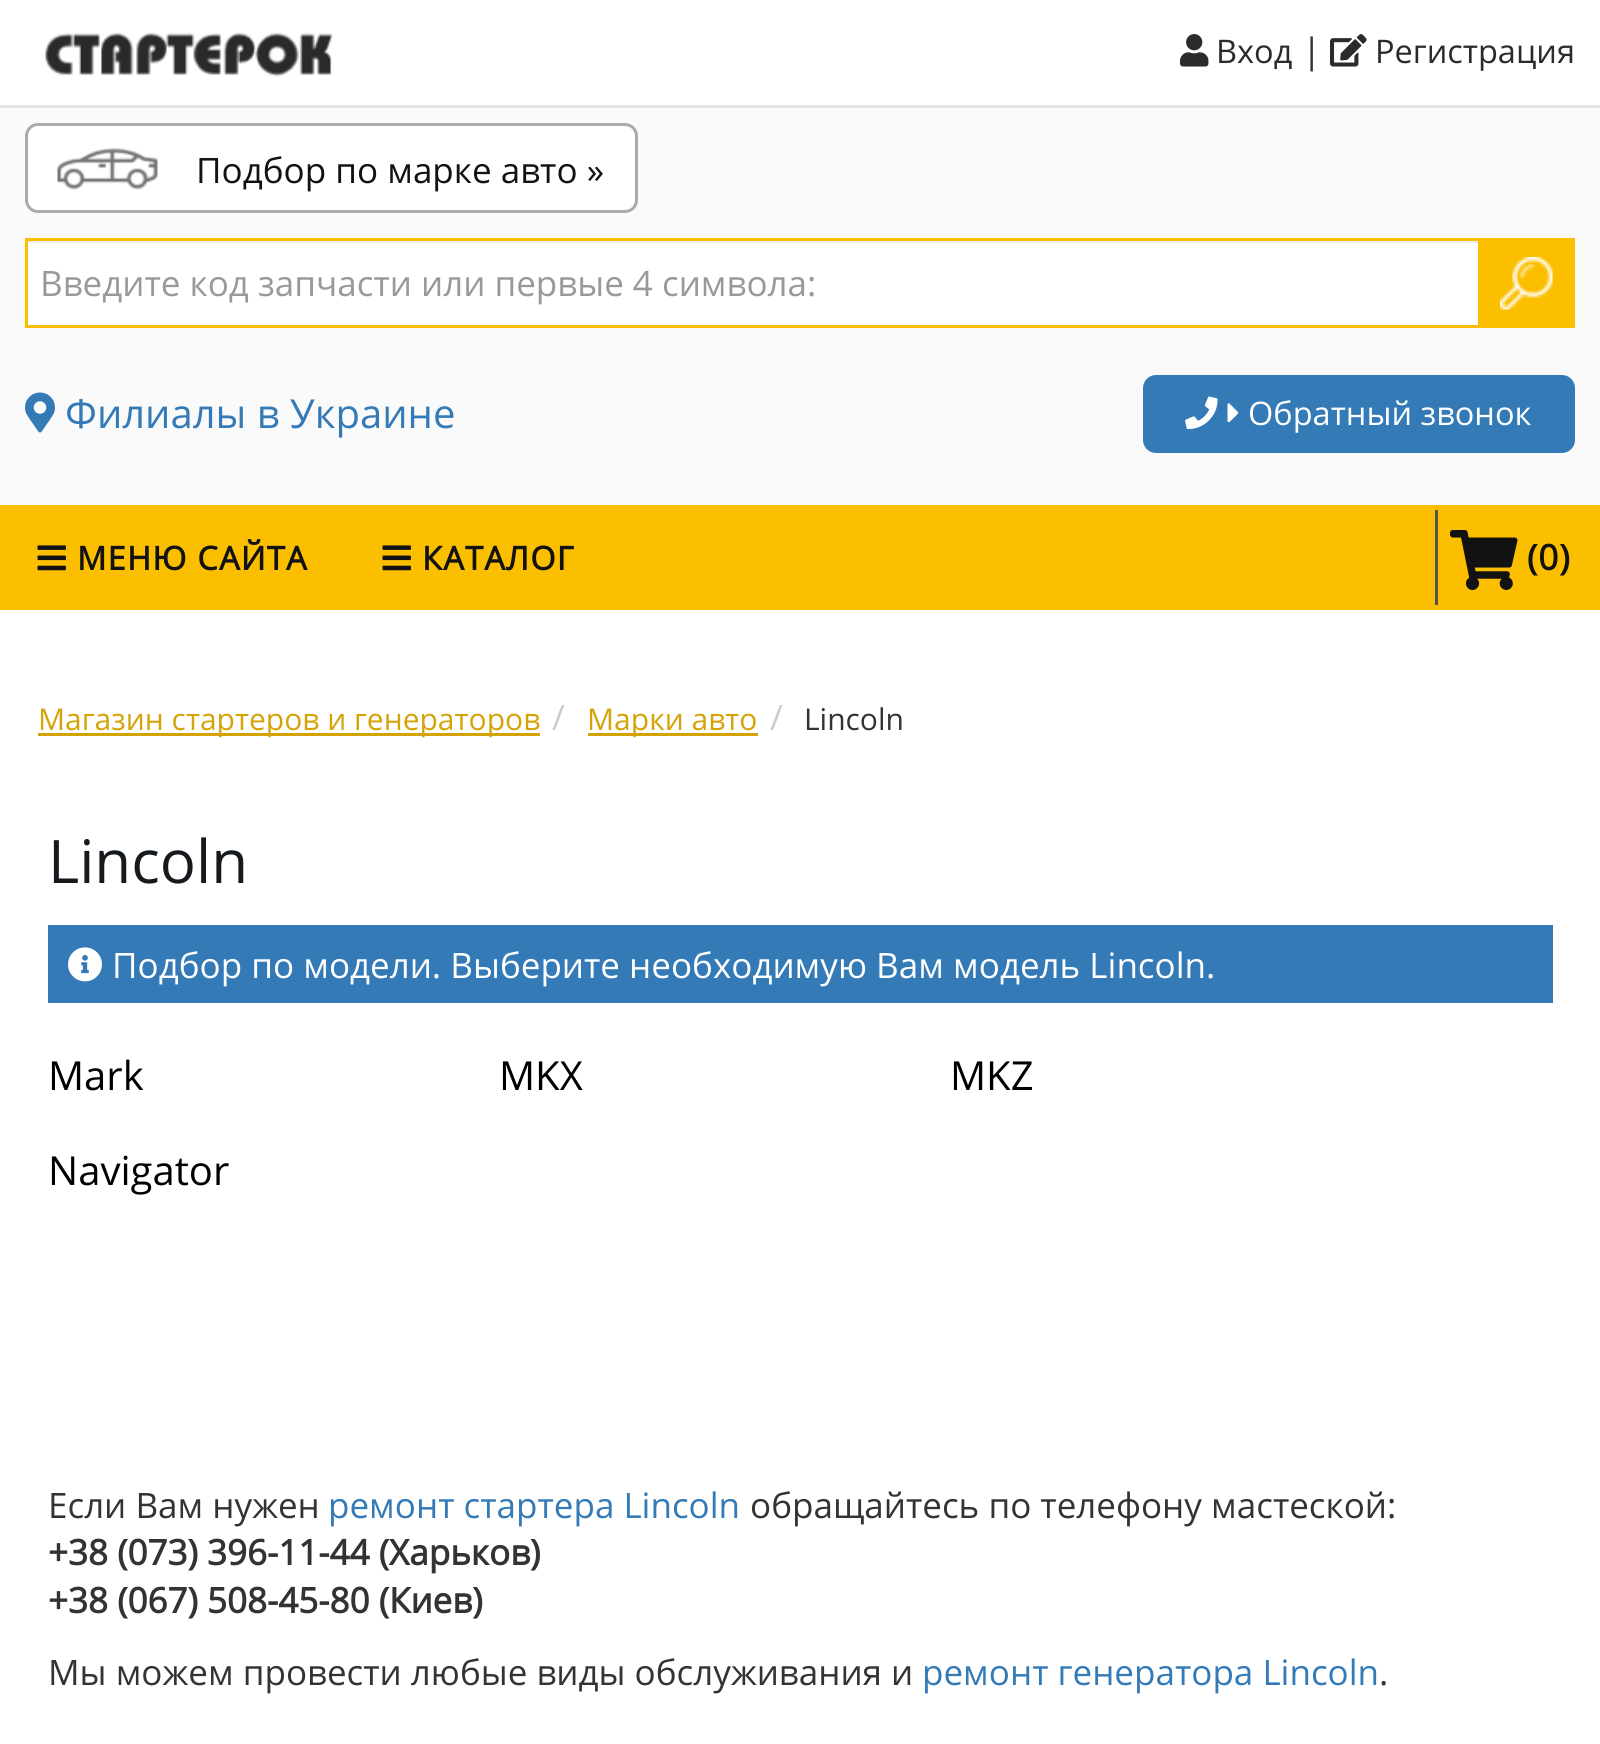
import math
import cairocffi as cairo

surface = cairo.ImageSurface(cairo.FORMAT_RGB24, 1600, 1744)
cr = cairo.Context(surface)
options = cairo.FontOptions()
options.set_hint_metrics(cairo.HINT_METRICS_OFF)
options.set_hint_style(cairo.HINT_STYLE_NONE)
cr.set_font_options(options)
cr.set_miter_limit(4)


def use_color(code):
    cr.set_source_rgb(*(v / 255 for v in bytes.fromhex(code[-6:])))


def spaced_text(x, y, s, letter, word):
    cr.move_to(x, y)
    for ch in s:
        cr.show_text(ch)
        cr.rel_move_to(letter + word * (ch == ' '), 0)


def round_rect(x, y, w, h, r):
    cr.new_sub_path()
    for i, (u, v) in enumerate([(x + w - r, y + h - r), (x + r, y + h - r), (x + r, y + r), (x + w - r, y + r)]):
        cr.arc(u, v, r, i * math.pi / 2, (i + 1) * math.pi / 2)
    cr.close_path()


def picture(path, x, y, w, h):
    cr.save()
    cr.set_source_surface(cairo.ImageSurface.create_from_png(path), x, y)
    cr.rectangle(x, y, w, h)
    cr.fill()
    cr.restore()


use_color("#ffffff")
cr.paint()
use_color("#e3e3e3")
cr.rectangle(0, 105, 1600, 3)
cr.fill()
picture("img1.png", 44, 32, 289, 45)
picture("img2.png", 1180, 34, 29, 33)
cr.select_font_face("Open Sans")
cr.set_font_size(32.5)
use_color("#2b2b2b")
cr.move_to(1216, 63)
cr.show_text("Вход")
cr.set_font_size(35)
use_color("#333333")
cr.move_to(1302, 63)
cr.show_text("|")
picture("img3.png", 1330, 34, 37, 33)
cr.set_font_size(32.5)
use_color("#2b2b2b")
cr.move_to(1375, 63)
cr.show_text("Регистрация")
use_color("#fafafa")
cr.rectangle(0, 108, 1600, 397)
cr.fill()
use_color("#ffffff")
round_rect(26.5, 124.5, 610, 87, 11.5)
cr.fill_preserve()
use_color("#aaaaaa")
cr.set_line_width(3)
cr.stroke()
picture("img4.png", 57, 148, 101, 42)
cr.set_font_size(35)
use_color("#121212")
cr.move_to(196, 183)
cr.show_text("Подбор по марке авто »")
use_color("#ffffff")
cr.rectangle(28, 243, 1450, 82)
cr.fill()
use_color("#ececec")
cr.rectangle(28, 241, 1450, 2)
cr.fill()
cr.rectangle(26.5, 239.5, 1547, 87)
use_color("#fbbf00")
cr.stroke()
use_color("#999999")
cr.move_to(40, 296)
cr.show_text("Введите код запчасти или первые 4 символа:")
use_color("#fbbf00")
cr.rectangle(1478, 241, 94, 84)
cr.fill()
picture("img5.png", 1500, 257, 53, 53)
picture("img6.png", 25, 392, 30, 41)
cr.set_font_size(40)
use_color("#337ab7")
cr.move_to(65, 428)
cr.show_text("Филиалы в Украине")
round_rect(1144.5, 376.5, 429, 75, 11.5)
cr.fill_preserve()
cr.stroke()
picture("img7.png", 1185, 396, 33, 34)
picture("img8.png", 1227, 403, 12, 20)
cr.set_font_size(32.5)
use_color("#ffffff")
cr.move_to(1248, 425)
cr.show_text("Обратный звонок")
use_color("#fbbf00")
cr.rectangle(0, 505, 1600, 105)
cr.fill()
picture("img9.png", 37, 545, 29, 26)
cr.select_font_face("Open Sans", cairo.FONT_SLANT_NORMAL, cairo.FONT_WEIGHT_BOLD)
use_color("#121212")
spaced_text(77, 570, "МЕНЮ САЙТА", 1.25, 0)
picture("img9.png", 382, 545, 29, 26)
spaced_text(422, 570, "КАТАЛОГ", 1.25, 0)
use_color("#525252")
cr.rectangle(1435, 510, 3, 95)
cr.fill()
picture("img10.png", 1450, 530, 68, 60)
cr.set_font_size(35)
use_color("#121212")
spaced_text(1527, 570, "(0)", 1, 0)
use_color("#d4a307")
cr.rectangle(38, 733, 502, 3)
cr.fill()
cr.select_font_face("Open Sans")
cr.set_font_size(30)
cr.move_to(38, 730)
cr.show_text("Магазин стартеров и генераторов")
cr.set_font_size(35)
use_color("#cccccc")
cr.move_to(552, 730)
cr.show_text("/")
use_color("#d4a307")
cr.rectangle(588, 733, 170, 3)
cr.fill()
cr.set_font_size(30)
cr.move_to(587, 730)
cr.show_text("Марки авто")
cr.set_font_size(35)
use_color("#cccccc")
cr.move_to(770, 730)
cr.show_text("/")
cr.set_font_size(30)
use_color("#333333")
cr.move_to(804, 730)
cr.show_text("Lincoln")
cr.set_font_size(60)
use_color("#151a1f")
cr.move_to(48, 883)
cr.show_text("Lincoln")
use_color("#337ab7")
cr.rectangle(48, 925, 1505, 78)
cr.fill()
picture("img11.png", 68, 947, 34, 35)
cr.set_font_size(35)
use_color("#ffffff")
cr.move_to(112, 978)
cr.show_text("Подбор по модели. Выберите необходимую Вам модель Lincoln.")
cr.set_font_size(40)
use_color("#000001")
cr.move_to(48, 1090)
cr.show_text("Mark")
cr.move_to(499, 1090)
cr.show_text("MKX")
cr.move_to(950, 1090)
cr.show_text("MKZ")
cr.move_to(48, 1185)
cr.show_text("Navigator")
cr.set_font_size(35)
use_color("#333333")
cr.move_to(48, 1518)
cr.show_text("Если Вам нужен")
use_color("#337ab7")
cr.move_to(328, 1518)
cr.show_text("ремонт стартера Lincoln")
use_color("#333333")
cr.move_to(750, 1518)
cr.show_text("обращайтесь по телефону мастеской:")
cr.select_font_face("Open Sans", cairo.FONT_SLANT_NORMAL, cairo.FONT_WEIGHT_BOLD)
cr.move_to(48, 1565)
cr.show_text("+38 (073) 396-11-44 (Харьков)")
cr.move_to(48, 1613)
cr.show_text("+38 (067) 508-45-80 (Киев)")
cr.select_font_face("Open Sans")
cr.move_to(48, 1685)
cr.show_text("Мы можем провести любые виды обслуживания и")
use_color("#337ab7")
cr.move_to(922, 1685)
cr.show_text("ремонт генератора Lincoln")
use_color("#333333")
cr.move_to(1379, 1685)
cr.show_text(".")
surface.write_to_png("result.png")
